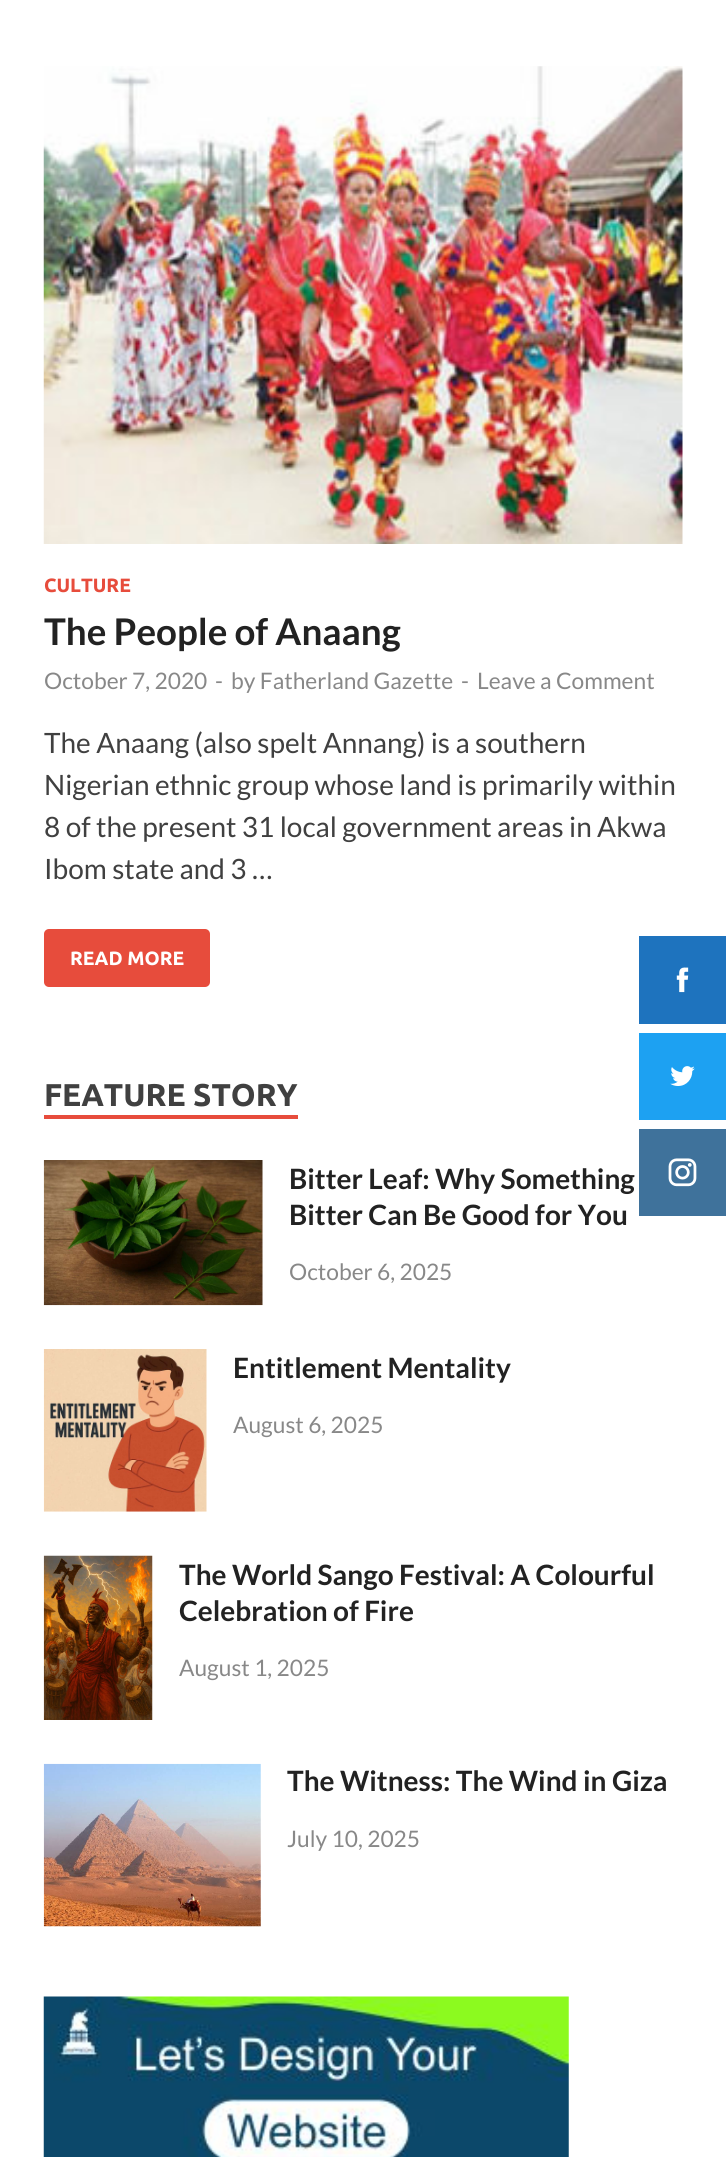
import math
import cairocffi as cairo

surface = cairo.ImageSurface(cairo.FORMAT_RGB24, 726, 2157)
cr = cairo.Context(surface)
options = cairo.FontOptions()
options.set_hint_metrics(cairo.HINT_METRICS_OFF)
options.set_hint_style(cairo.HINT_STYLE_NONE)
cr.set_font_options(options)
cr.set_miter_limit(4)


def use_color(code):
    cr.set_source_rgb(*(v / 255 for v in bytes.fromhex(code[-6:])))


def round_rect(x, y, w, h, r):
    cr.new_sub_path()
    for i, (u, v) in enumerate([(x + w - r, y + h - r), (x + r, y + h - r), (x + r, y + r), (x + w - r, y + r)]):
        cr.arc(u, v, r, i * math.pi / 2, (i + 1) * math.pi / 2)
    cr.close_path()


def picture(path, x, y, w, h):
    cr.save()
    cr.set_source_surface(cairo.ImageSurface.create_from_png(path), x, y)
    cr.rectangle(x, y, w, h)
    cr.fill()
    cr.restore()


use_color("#ffffff")
cr.paint()
picture("img1.png", 43, 66, 640, 478)
cr.select_font_face("Ubuntu", cairo.FONT_SLANT_NORMAL, cairo.FONT_WEIGHT_BOLD)
cr.set_font_size(19.25)
use_color("#e74c3c")
cr.move_to(44, 592)
cr.show_text("CULTURE")
cr.select_font_face("Lato", cairo.FONT_SLANT_NORMAL, cairo.FONT_WEIGHT_BOLD)
cr.set_font_size(36.75)
use_color("#222222")
cr.move_to(44, 645)
cr.show_text("The People of Anaang")
cr.select_font_face("Lato")
cr.set_font_size(22.75)
use_color("#888888")
cr.move_to(44, 689)
cr.show_text("October 7, 2020")
cr.move_to(215, 689)
cr.show_text("-")
cr.move_to(231, 689)
cr.show_text("by Fatherland Gazette")
cr.move_to(461, 689)
cr.show_text("-")
cr.move_to(477, 689)
cr.show_text("Leave a Comment")
cr.set_font_size(28)
use_color("#404040")
cr.move_to(44, 753)
cr.show_text("The Anaang (also spelt Annang) is a southern")
cr.move_to(44, 795)
cr.show_text("Nigerian ethnic group whose land is primarily within")
cr.move_to(44, 837)
cr.show_text("8 of the present 31 local government areas in Akwa")
cr.move_to(44, 879)
cr.show_text("Ibom state and 3 …")
use_color("#e74c3c")
round_rect(44, 929, 166, 58, 5)
cr.fill()
cr.select_font_face("Ubuntu", cairo.FONT_SLANT_NORMAL, cairo.FONT_WEIGHT_BOLD)
cr.set_font_size(19.25)
use_color("#ffffff")
cr.move_to(70, 965)
cr.show_text("READ MORE")
use_color("#e74c3c")
cr.rectangle(44, 1115, 254, 4)
cr.fill()
cr.set_font_size(31.5)
use_color("#404040")
cr.move_to(44, 1106)
cr.show_text("FEATURE STORY")
picture("img2.png", 43, 1160, 220, 146)
cr.select_font_face("Lato", cairo.FONT_SLANT_NORMAL, cairo.FONT_WEIGHT_BOLD)
cr.set_font_size(28)
use_color("#222222")
cr.move_to(289, 1189)
cr.show_text("Bitter Leaf: Why Something")
cr.move_to(289, 1225)
cr.show_text("Bitter Can Be Good for You")
cr.select_font_face("Lato")
cr.set_font_size(22.75)
use_color("#888888")
cr.move_to(289, 1280)
cr.show_text("October 6, 2025")
picture("img3.png", 43, 1349, 164, 163)
cr.select_font_face("Lato", cairo.FONT_SLANT_NORMAL, cairo.FONT_WEIGHT_BOLD)
cr.set_font_size(28)
use_color("#222222")
cr.move_to(233, 1378)
cr.show_text("Entitlement Mentality")
cr.select_font_face("Lato")
cr.set_font_size(22.75)
use_color("#888888")
cr.move_to(233, 1433)
cr.show_text("August 6, 2025")
picture("img4.png", 43, 1555, 110, 165)
cr.save()
cr.rectangle(179, 1556, 504, 129)
cr.clip()
cr.select_font_face("Lato", cairo.FONT_SLANT_NORMAL, cairo.FONT_WEIGHT_BOLD)
cr.set_font_size(28)
use_color("#222222")
cr.move_to(179, 1585)
cr.show_text("The World Sango Festival: A Colourful")
cr.restore()
cr.select_font_face("Lato", cairo.FONT_SLANT_NORMAL, cairo.FONT_WEIGHT_BOLD)
cr.set_font_size(28)
use_color("#222222")
cr.move_to(179, 1621)
cr.show_text("Celebration of Fire")
cr.select_font_face("Lato")
cr.set_font_size(22.75)
use_color("#888888")
cr.move_to(179, 1676)
cr.show_text("August 1, 2025")
picture("img5.png", 43, 1763, 218, 164)
cr.select_font_face("Lato", cairo.FONT_SLANT_NORMAL, cairo.FONT_WEIGHT_BOLD)
cr.set_font_size(28)
use_color("#222222")
cr.move_to(287, 1791)
cr.show_text("The Witness: The Wind in Giza")
cr.select_font_face("Lato")
cr.set_font_size(22.75)
use_color("#888888")
cr.move_to(287, 1847)
cr.show_text("July 10, 2025")
picture("img6.png", 43, 1996, 526, 161)
use_color("#1e73be")
cr.rectangle(639, 936, 87, 88)
cr.fill()
picture("img7.png", 676, 967, 13, 26)
use_color("#1da1f2")
cr.rectangle(639, 1033, 87, 87)
cr.fill()
picture("img8.png", 670, 1066, 25, 20)
use_color("#3f729b")
cr.rectangle(639, 1129, 87, 87)
cr.fill()
picture("img9.png", 668, 1158, 29, 29)
surface.write_to_png("result.png")
